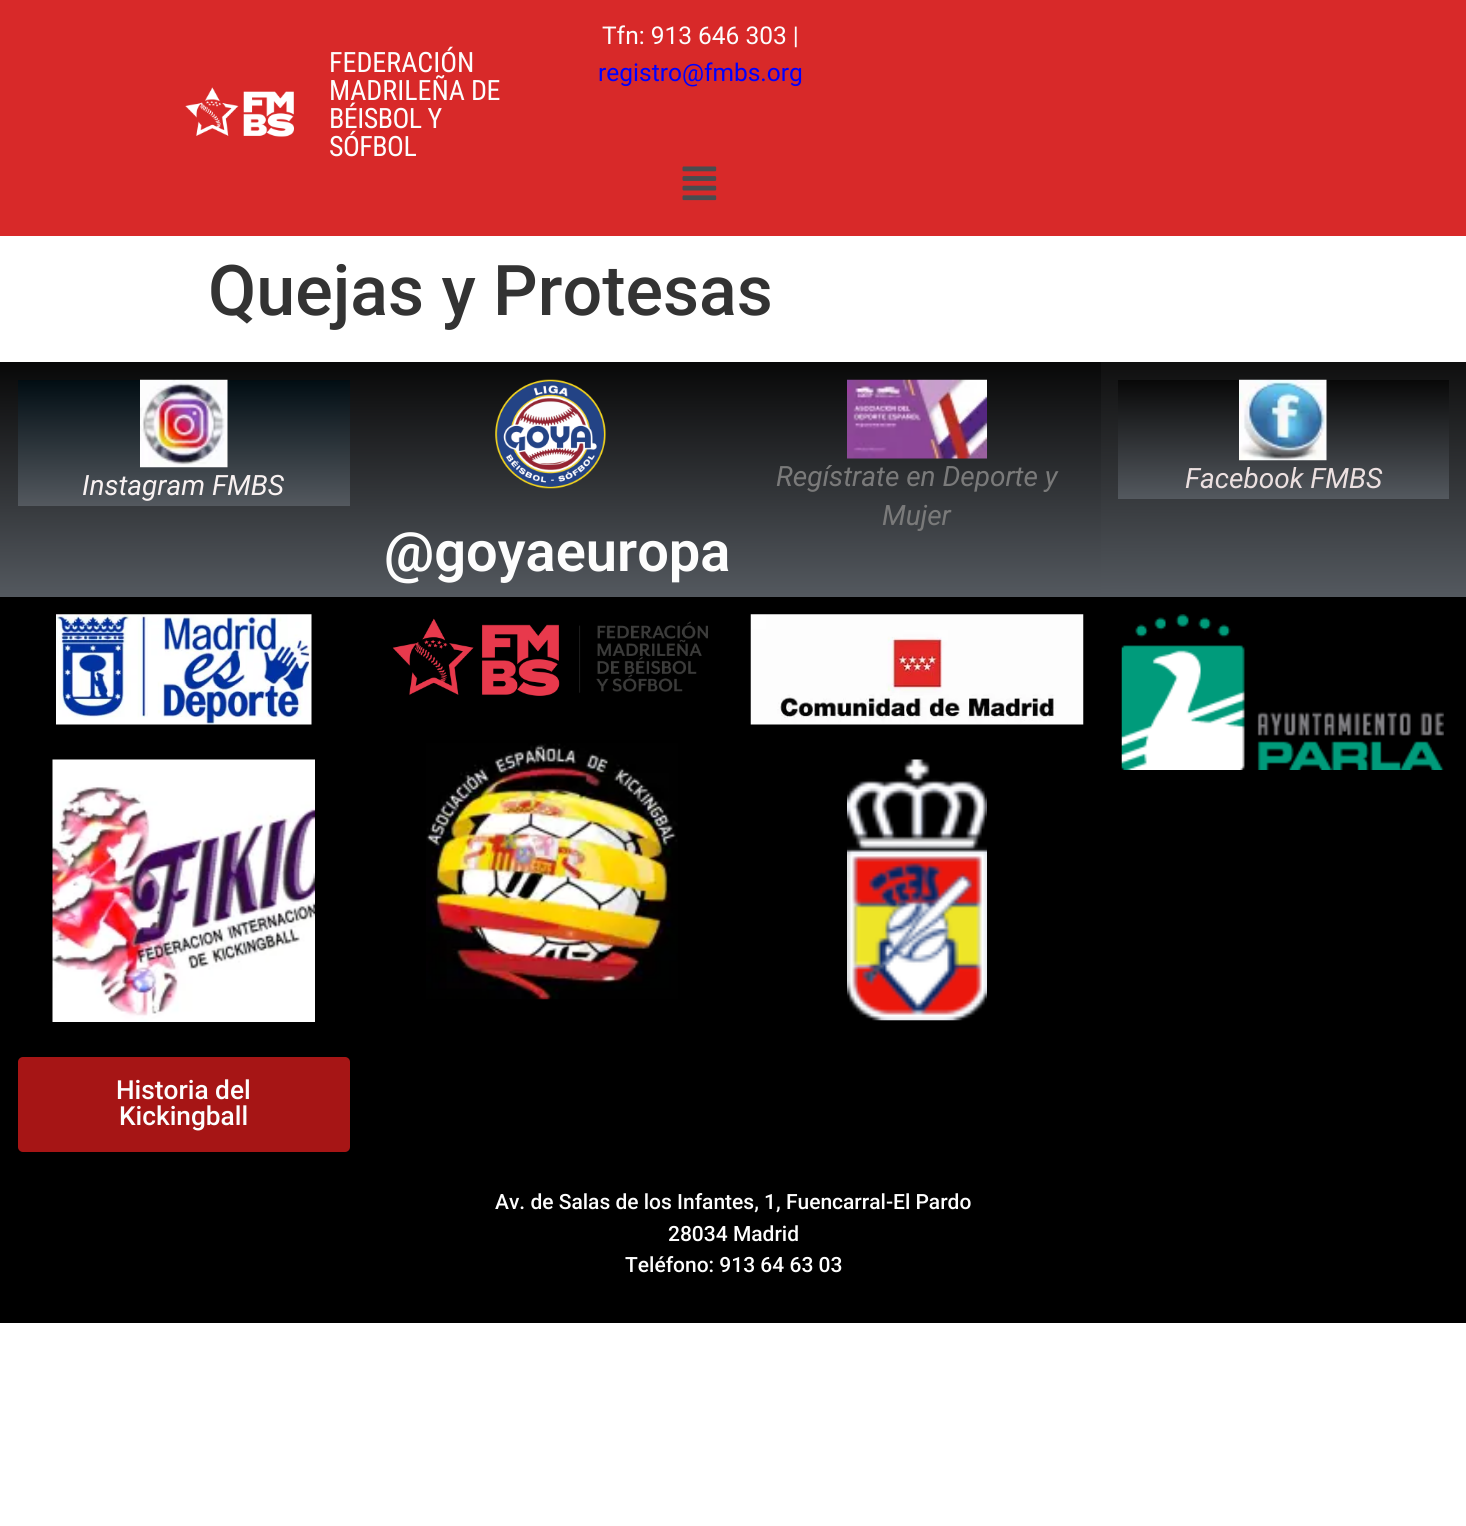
import math
import cairocffi as cairo

surface = cairo.ImageSurface(cairo.FORMAT_RGB24, 1466, 1526)
cr = cairo.Context(surface)
options = cairo.FontOptions()
options.set_hint_metrics(cairo.HINT_METRICS_OFF)
options.set_hint_style(cairo.HINT_STYLE_NONE)
cr.set_font_options(options)
cr.set_miter_limit(4)


def use_color(code):
    cr.set_source_rgb(*(v / 255 for v in bytes.fromhex(code[-6:])))


def spaced_text(x, y, s, letter, word):
    cr.move_to(x, y)
    for ch in s:
        cr.show_text(ch)
        cr.rel_move_to(letter + word * (ch == ' '), 0)


def round_rect(x, y, w, h, r):
    cr.new_sub_path()
    for i, (u, v) in enumerate([(x + w - r, y + h - r), (x + r, y + h - r), (x + r, y + r), (x + w - r, y + r)]):
        cr.arc(u, v, r, i * math.pi / 2, (i + 1) * math.pi / 2)
    cr.close_path()


def picture(path, x, y, w, h):
    cr.save()
    cr.set_source_surface(cairo.ImageSurface.create_from_png(path), x, y)
    cr.rectangle(x, y, w, h)
    cr.fill()
    cr.restore()


use_color("#ffffff")
cr.paint()
use_color("#d82929")
cr.rectangle(0, 0, 1466, 236)
cr.fill()
picture("img1.png", 185, 87, 109, 50)
cr.select_font_face("Roboto Condensed")
cr.set_font_size(28)
use_color("#fdfdfd")
cr.move_to(329, 72)
cr.show_text("FEDERACIÓN")
cr.move_to(329, 100)
cr.show_text("MADRILEÑA")
spaced_text(471, 100, "DE", -0.5, 0)
spaced_text(329, 128, "BÉISBOL Y", -0.5, 0)
spaced_text(329, 156, "SÓFBOL", -0.5, 0)
cr.select_font_face("Roboto")
cr.set_font_size(24.5)
cr.move_to(602, 44)
cr.show_text("Tfn: 913 646 303 |")
use_color("#0000ff")
cr.move_to(598, 81)
cr.show_text("registro@fmbs.org")
picture("img2.png", 682, 166, 35, 35)
cr.select_font_face("Roboto Medium")
cr.set_font_size(70)
use_color("#333333")
cr.move_to(208, 315)
cr.show_text("Quejas y Protesas")
gradient = cairo.LinearGradient(733, 362, 733, 597)
gradient.add_color_stop_rgba(0, 0.031, 0.031, 0.031, 1)
gradient.add_color_stop_rgba(1, 0.329, 0.349, 0.373, 1)
cr.set_source(gradient)
cr.rectangle(0, 362, 1101, 235)
cr.fill()
gradient = cairo.LinearGradient(184, 380, 184, 506)
gradient.add_color_stop_rgba(0, 0.004, 0.051, 0.075, 1)
gradient.add_color_stop_rgba(1, 0.329, 0.349, 0.373, 1)
cr.set_source(gradient)
cr.rectangle(18, 380, 332, 126)
cr.fill()
picture("img3.png", 140, 379, 88, 89)
cr.select_font_face("Roboto", cairo.FONT_SLANT_ITALIC)
cr.set_font_size(28)
use_color("#f8f1f1")
cr.move_to(82, 495)
cr.show_text("Instagram FMBS")
picture("img4.png", 847, 379, 140, 80)
use_color("#7a7a7a")
cr.move_to(776, 486)
cr.show_text("Regístrate en Deporte y")
cr.move_to(882, 525)
cr.show_text("Mujer")
gradient = cairo.LinearGradient(1284, 362, 1284, 597)
gradient.add_color_stop_rgba(0, 0.059, 0.059, 0.059, 1)
gradient.add_color_stop_rgba(1, 0.329, 0.349, 0.373, 1)
cr.set_source(gradient)
cr.rectangle(1101, 362, 365, 235)
cr.fill()
gradient = cairo.LinearGradient(1284, 380, 1284, 499)
gradient.add_color_stop_rgba(0, 0.031, 0.031, 0.031, 1)
gradient.add_color_stop_rgba(1, 0.329, 0.349, 0.373, 1)
cr.set_source(gradient)
cr.rectangle(1118, 380, 331, 119)
cr.fill()
picture("img5.png", 1239, 379, 88, 82)
use_color("#ece0e0")
cr.move_to(1185, 488)
cr.show_text("Facebook FMBS")
picture("img6.png", 495, 379, 111, 110)
cr.select_font_face("Roboto SemiBold")
cr.set_font_size(56)
use_color("#fdfdfd")
cr.move_to(384, 571)
cr.show_text("@goyaeuropa")
use_color("#000000")
cr.rectangle(0, 597, 1466, 726)
cr.fill()
picture("img7.png", 392, 618, 316, 78)
picture("img8.png", 426, 743, 252, 257)
picture("img9.png", 750, 614, 334, 111)
picture("img10.png", 847, 759, 140, 262)
picture("img11.png", 1121, 614, 323, 156)
picture("img12.png", 56, 614, 256, 111)
picture("img13.png", 52, 759, 263, 263)
use_color("#a61515")
round_rect(18, 1057, 332, 95, 5)
cr.fill()
cr.select_font_face("Roboto Medium")
cr.set_font_size(26.25)
use_color("#fdfdfd")
cr.move_to(116, 1099)
cr.show_text("Historia del")
cr.move_to(119, 1125)
cr.show_text("Kickingball")
cr.set_font_size(21)
cr.move_to(495, 1209)
cr.show_text("Av. de Salas de los Infantes, 1, Fuencarral-El Pardo")
cr.move_to(668, 1241)
cr.show_text("28034 Madrid")
cr.move_to(625, 1272)
cr.show_text("Teléfono: 913 64 63 03")
surface.write_to_png("result.png")
